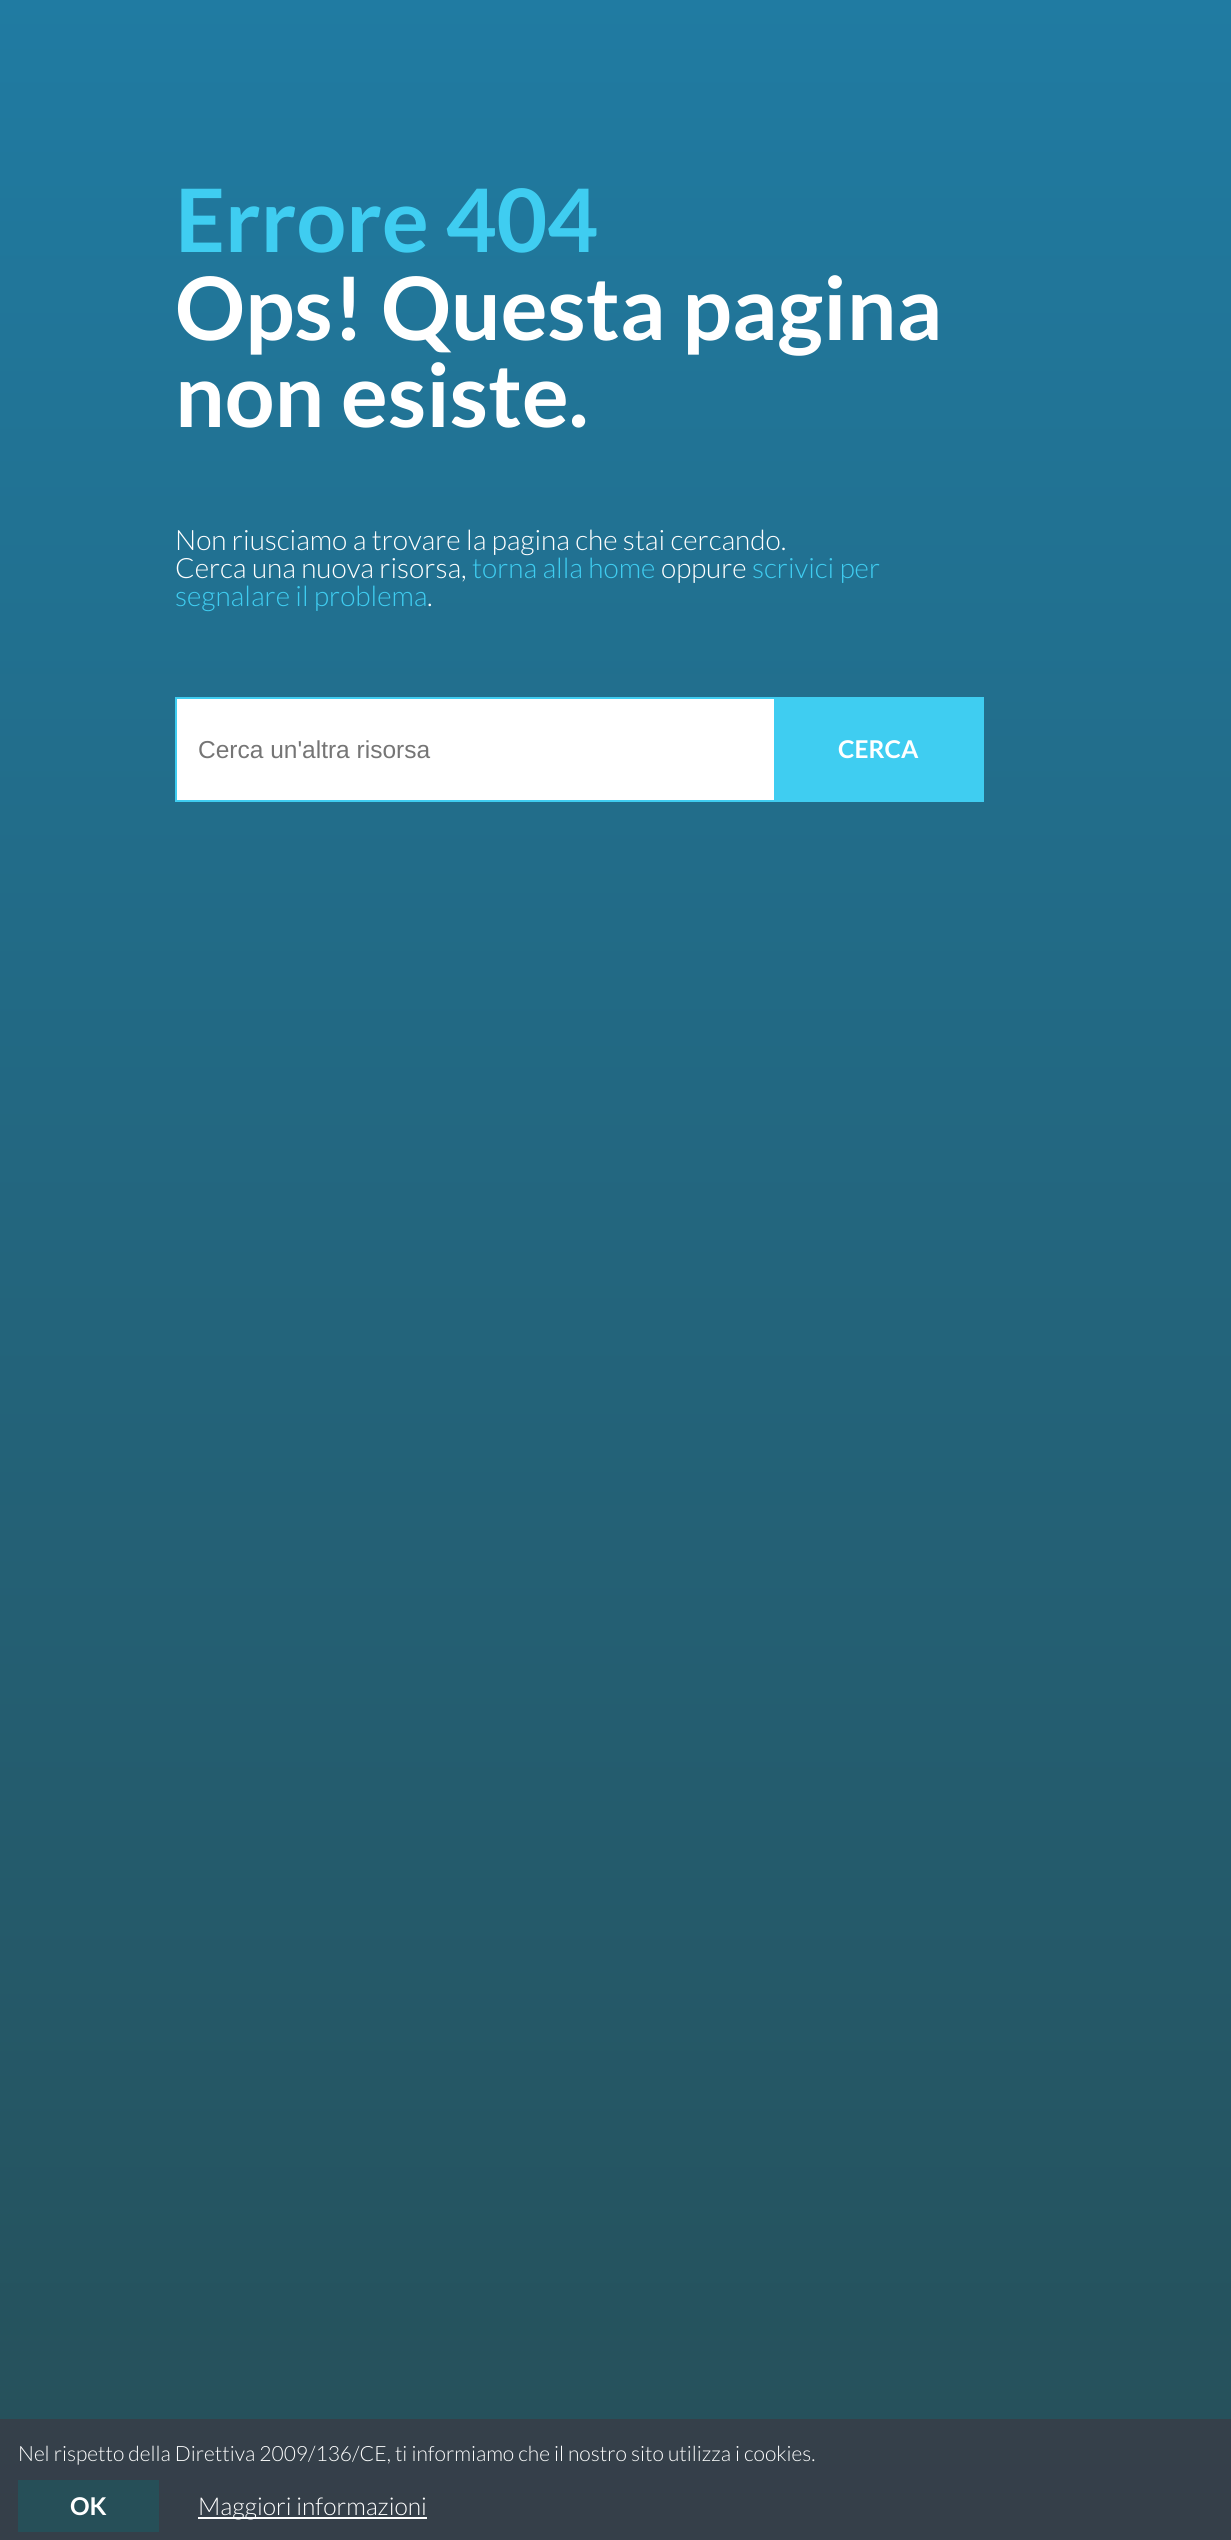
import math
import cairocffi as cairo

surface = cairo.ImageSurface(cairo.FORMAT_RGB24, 1231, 2540)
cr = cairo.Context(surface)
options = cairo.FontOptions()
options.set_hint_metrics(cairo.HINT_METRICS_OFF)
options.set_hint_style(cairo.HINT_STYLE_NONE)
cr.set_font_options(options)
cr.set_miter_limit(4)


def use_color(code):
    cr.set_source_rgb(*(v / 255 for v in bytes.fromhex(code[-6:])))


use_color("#ffffff")
cr.paint()
gradient = cairo.LinearGradient(616, 0, 616, 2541)
gradient.add_color_stop_rgba(0, 0.125, 0.482, 0.635, 1)
gradient.add_color_stop_rgba(1, 0.149, 0.31, 0.345, 1)
cr.set_source(gradient)
cr.rectangle(0, 0, 1231, 2419)
cr.fill()
gradient = cairo.LinearGradient(616, 0, 616, 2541)
gradient.add_color_stop_rgba(0, 0.2, 0.314, 0.404, 1)
gradient.add_color_stop_rgba(1, 0.208, 0.247, 0.286, 1)
cr.set_source(gradient)
cr.rectangle(0, 2419, 1231, 121)
cr.fill()
cr.select_font_face("Lato", cairo.FONT_SLANT_NORMAL, cairo.FONT_WEIGHT_BOLD)
cr.set_font_size(87.5)
use_color("#3fcdf1")
cr.move_to(175, 252)
cr.show_text("Errore 404")
use_color("#ffffff")
cr.move_to(175, 340)
cr.show_text("Ops! Questa pagina")
cr.move_to(175, 427)
cr.show_text("non esiste.")
cr.select_font_face("Lato Light")
cr.set_font_size(28)
cr.move_to(175, 550)
cr.show_text("Non riusciamo a trovare la pagina che stai cercando.")
cr.move_to(175, 578)
cr.show_text("Cerca una nuova risorsa,")
use_color("#3fcdf1")
cr.move_to(472, 578)
cr.show_text("torna alla home")
use_color("#ffffff")
cr.move_to(661, 578)
cr.show_text("oppure")
use_color("#3fcdf1")
cr.move_to(752, 578)
cr.show_text("scrivici per")
cr.move_to(175, 606)
cr.show_text("segnalare il problema")
use_color("#ffffff")
cr.move_to(427, 606)
cr.show_text(".")
cr.rectangle(177, 699, 597, 101)
cr.fill()
cr.rectangle(176, 698, 807, 103)
use_color("#3fcdf1")
cr.stroke()
cr.select_font_face("Liberation Sans")
cr.set_font_size(24.5)
use_color("#757575")
cr.move_to(198, 758)
cr.show_text("Cerca un'altra risorsa")
use_color("#3fcdf1")
cr.rectangle(774, 699, 208, 101)
cr.fill()
cr.select_font_face("Lato", cairo.FONT_SLANT_NORMAL, cairo.FONT_WEIGHT_BOLD)
use_color("#ffffff")
cr.move_to(838, 758)
cr.show_text("CERCA")
cr.select_font_face("Lato Light")
cr.set_font_size(21)
cr.move_to(18, 2461)
cr.show_text("Nel rispetto della Direttiva 2009/136/CE, ti informiamo che il nostro sito utilizza i cookies.")
use_color("#264f58")
cr.rectangle(18, 2480, 141, 52)
cr.fill()
cr.select_font_face("Lato", cairo.FONT_SLANT_NORMAL, cairo.FONT_WEIGHT_BOLD)
cr.set_font_size(24.5)
use_color("#ffffff")
cr.move_to(70, 2515)
cr.show_text("OK")
cr.rectangle(198, 2517, 229, 2)
cr.fill()
cr.select_font_face("Lato Light")
cr.move_to(198, 2515)
cr.show_text("Maggiori informazioni")
surface.write_to_png("result.png")
